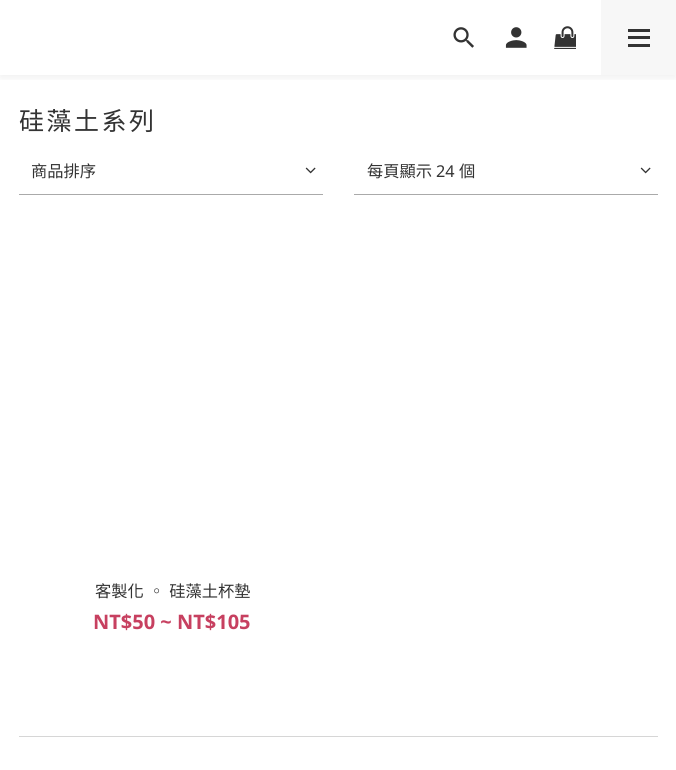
import math
import cairocffi as cairo

surface = cairo.ImageSurface(cairo.FORMAT_RGB24, 676, 770)
cr = cairo.Context(surface)
options = cairo.FontOptions()
options.set_hint_metrics(cairo.HINT_METRICS_OFF)
options.set_hint_style(cairo.HINT_STYLE_NONE)
cr.set_font_options(options)
cr.set_miter_limit(4)


def use_color(code):
    cr.set_source_rgb(*(v / 255 for v in bytes.fromhex(code[-6:])))


def spaced_text(x, y, s, letter, word):
    cr.move_to(x, y)
    for ch in s:
        cr.show_text(ch)
        cr.rel_move_to(letter + word * (ch == ' '), 0)


def round_rect(x, y, w, h, r):
    cr.new_sub_path()
    for i, (u, v) in enumerate([(x + w - r, y + h - r), (x + r, y + h - r), (x + r, y + r), (x + w - r, y + r)]):
        cr.arc(u, v, r, i * math.pi / 2, (i + 1) * math.pi / 2)
    cr.close_path()


def shadow(x, y, w, h, r, blur, alpha):
    cr.push_group_with_content(cairo.CONTENT_ALPHA)
    cr.set_operator(cairo.OPERATOR_SOURCE)
    for i in range(15, -16, -2):
        e = blur * i / 6
        if min(w, h) + 2 * e > 0:
            cr.set_source_rgba(0, 0, 0, alpha * math.erfc((i - 1) / 8.5) / 2)
            round_rect(x - e, y - e, w + 2 * e, h + 2 * e, max(0, min(r + e + blur * .6, min(w, h) / 2 + e)))
            cr.fill()
    cr.mask(cr.pop_group())


def picture(path, x, y, w, h):
    cr.save()
    cr.set_source_surface(cairo.ImageSurface.create_from_png(path), x, y)
    cr.rectangle(x, y, w, h)
    cr.fill()
    cr.restore()


use_color("#ffffff")
cr.paint()
cr.save()
cr.rectangle(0, 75, 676, 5)
cr.clip()
use_color("#000000")
shadow(0, 3, 676, 75, 0, 4, 0.06)
cr.restore()
picture("img1.png", 453, 27, 21, 21)
picture("img2.png", 505, 27, 22, 21)
picture("img3.png", 554, 26, 22, 23)
use_color("#f7f7f7")
cr.rectangle(601, 0, 75, 75)
cr.fill()
use_color("#333333")
cr.rectangle(628, 36, 22, 3)
cr.fill()
cr.rectangle(628, 29, 22, 3)
cr.fill()
cr.rectangle(628, 44, 22, 3)
cr.fill()
cr.select_font_face("Noto Sans TC")
cr.set_font_size(25)
spaced_text(19, 130, "硅藻土系列", 2.5, 0)
cr.set_font_size(16.25)
cr.move_to(31, 177)
cr.show_text("商品排序")
use_color("#aaaaaa")
cr.rectangle(19, 194, 304, 1)
cr.fill()
picture("img4.png", 305, 167, 11, 7)
use_color("#333333")
cr.move_to(367, 177)
cr.show_text("每頁顯示")
cr.select_font_face("Noto Sans")
cr.move_to(436, 177)
cr.show_text("24")
cr.select_font_face("Noto Sans TC")
cr.move_to(459, 177)
cr.show_text("個")
use_color("#aaaaaa")
cr.rectangle(354, 194, 304, 1)
cr.fill()
picture("img4.png", 640, 167, 11, 7)
use_color("#333333")
spaced_text(95, 597, "客製化 ◦ 硅藻土杯墊", 0, 1)
cr.select_font_face("Noto Sans", cairo.FONT_SLANT_NORMAL, cairo.FONT_WEIGHT_BOLD)
cr.set_font_size(20)
use_color("#c74060")
cr.move_to(93, 629)
cr.show_text("NT$50 ~ NT$105")
use_color("#d6d6d6")
cr.rectangle(19, 736, 639, 1)
cr.fill()
surface.write_to_png("result.png")
